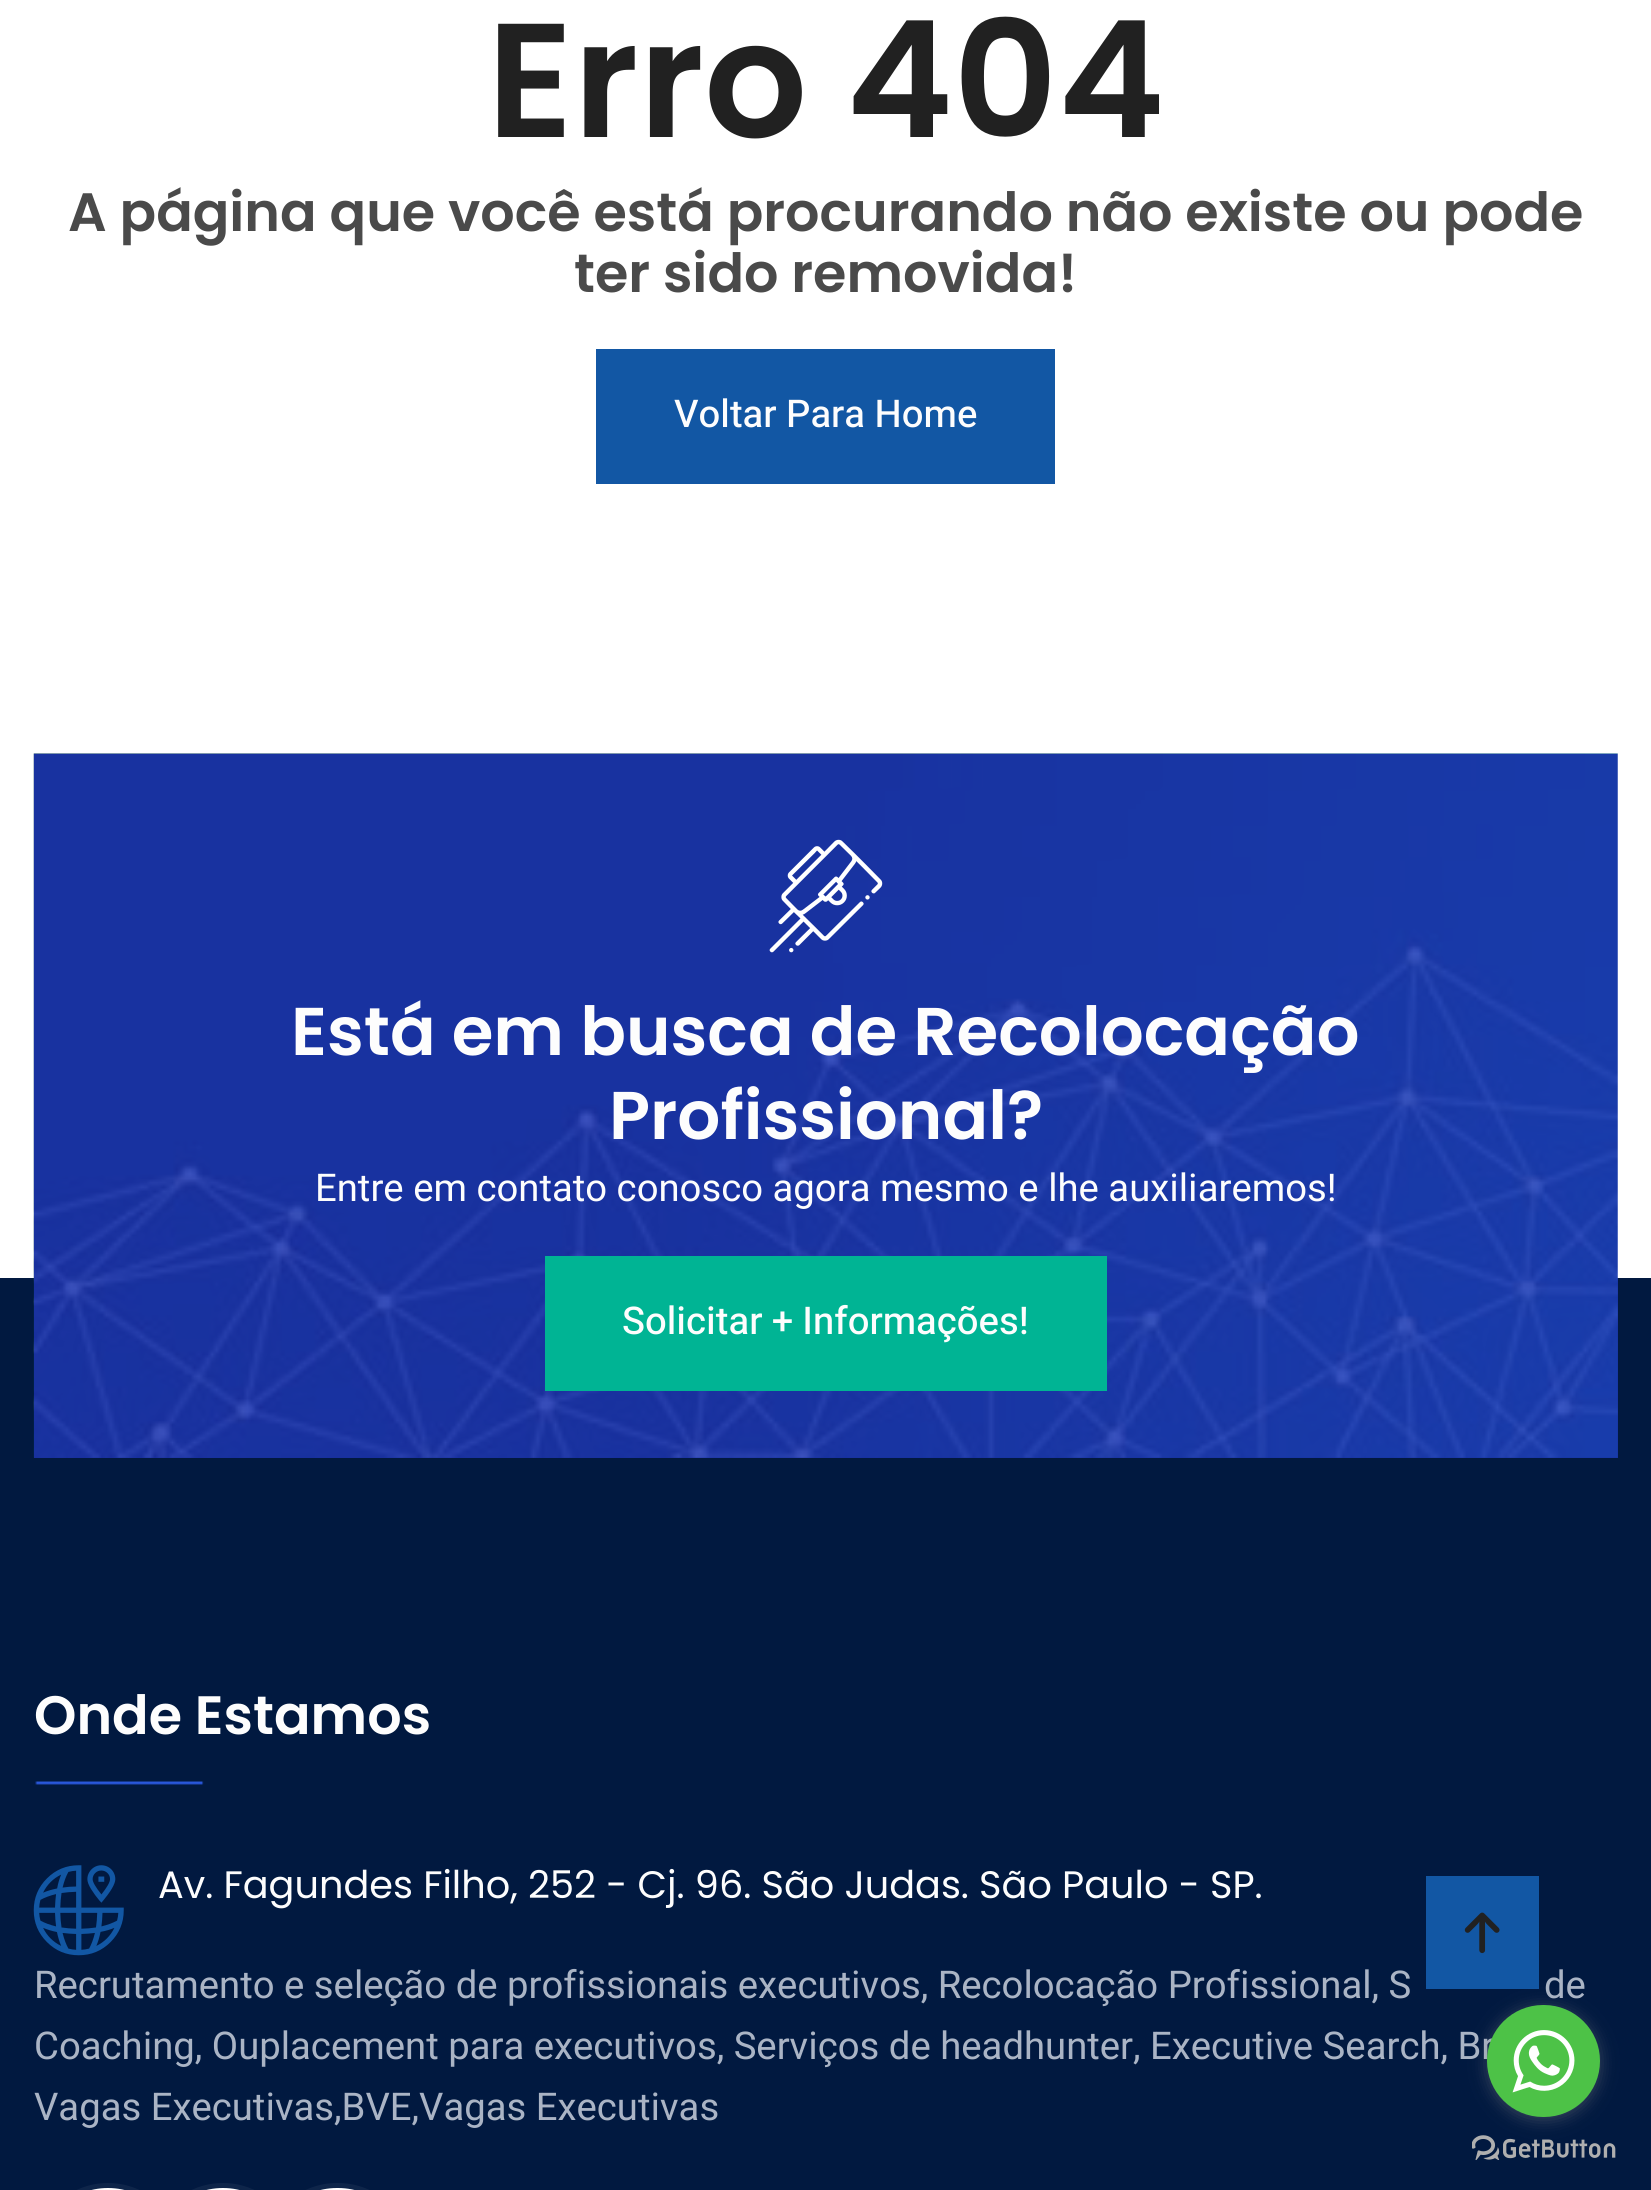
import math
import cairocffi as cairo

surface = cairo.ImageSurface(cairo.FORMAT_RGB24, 1651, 2190)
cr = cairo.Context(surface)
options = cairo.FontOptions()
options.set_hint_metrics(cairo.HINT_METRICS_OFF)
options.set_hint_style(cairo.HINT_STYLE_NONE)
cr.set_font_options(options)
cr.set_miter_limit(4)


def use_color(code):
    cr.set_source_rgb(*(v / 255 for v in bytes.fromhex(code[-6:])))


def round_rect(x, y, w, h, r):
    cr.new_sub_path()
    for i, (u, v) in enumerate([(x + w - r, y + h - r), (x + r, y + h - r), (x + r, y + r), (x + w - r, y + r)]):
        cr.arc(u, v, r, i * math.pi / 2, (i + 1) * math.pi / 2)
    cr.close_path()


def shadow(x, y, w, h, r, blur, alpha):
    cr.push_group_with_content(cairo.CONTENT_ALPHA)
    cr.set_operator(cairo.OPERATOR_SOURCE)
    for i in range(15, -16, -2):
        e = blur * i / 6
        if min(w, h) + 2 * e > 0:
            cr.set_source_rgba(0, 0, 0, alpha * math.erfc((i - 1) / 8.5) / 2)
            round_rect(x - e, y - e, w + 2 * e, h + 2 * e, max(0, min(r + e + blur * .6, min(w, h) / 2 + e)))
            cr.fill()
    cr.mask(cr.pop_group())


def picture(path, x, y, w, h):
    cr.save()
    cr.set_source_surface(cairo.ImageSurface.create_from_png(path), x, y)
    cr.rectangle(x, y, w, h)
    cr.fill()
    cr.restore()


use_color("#ffffff")
cr.paint()
cr.select_font_face("Poppins SemiBold")
cr.set_font_size(162)
use_color("#212121")
cr.move_to(487, 137)
cr.show_text("Erro 404")
cr.set_font_size(54)
use_color("#4a4a4a")
cr.move_to(68, 231)
cr.show_text("A página que você está procurando não existe ou pode")
cr.move_to(574, 292)
cr.show_text("ter sido removida!")
use_color("#1257a4")
cr.rectangle(596, 349, 459, 135)
cr.fill()
cr.select_font_face("Heebo Medium")
cr.set_font_size(38.25)
use_color("#fdfdfd")
cr.move_to(674, 427)
cr.show_text("Voltar Para Home")
use_color("#011940")
cr.rectangle(0, 1278, 1651, 912)
cr.fill()
use_color("#182c99")
cr.rectangle(34, 1278, 1584, 180)
cr.fill()
picture("img1.png", 33, 753, 1585, 705)
picture("img2.png", 769, 839, 114, 114)
cr.select_font_face("Poppins SemiBold")
cr.set_font_size(67.5)
use_color("#fdfdfd")
cr.move_to(291, 1055)
cr.show_text("Está em busca de Recolocação")
cr.move_to(609, 1139)
cr.show_text("Profissional?")
cr.select_font_face("Heebo")
cr.set_font_size(38.25)
cr.move_to(315, 1201)
cr.show_text("Entre em contato conosco agora mesmo e lhe auxiliaremos!")
use_color("#00b494")
cr.rectangle(545, 1256, 562, 135)
cr.fill()
cr.select_font_face("Heebo Medium")
use_color("#fdfdfd")
cr.move_to(622, 1334)
cr.show_text("Solicitar + Informações!")
cr.select_font_face("Poppins SemiBold")
cr.set_font_size(54)
cr.move_to(34, 1734)
cr.show_text("Onde Estamos")
picture("img3.png", 35, 1781, 169, 4)
picture("img4.png", 33, 1865, 91, 91)
cr.select_font_face("Poppins")
cr.set_font_size(38.25)
cr.move_to(158, 1898)
cr.show_text("Av. Fagundes Filho, 252 - Cj. 96. São Judas. São Paulo - SP.")
cr.select_font_face("Heebo")
use_color("#aab4c5")
cr.move_to(34, 1998)
cr.show_text("Recrutamento e seleção de profissionais executivos, Recolocação Profissional, S")
cr.move_to(1544, 1998)
cr.show_text("de")
cr.move_to(34, 2059)
cr.show_text("Coaching, Ouplacement para executivos, Serviços de headhunter, Executive Search, Br")
cr.move_to(34, 2120)
cr.show_text("Vagas Executivas,BVE,Vagas Executivas")
use_color("#ffffff")
round_rect(265.5, 2185.5, 144, 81, 71.5)
cr.fill_preserve()
use_color("#0e254a")
cr.set_line_width(5)
cr.stroke()
use_color("#ffffff")
round_rect(151.5, 2185.5, 143, 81, 71.5)
cr.fill_preserve()
use_color("#0e254a")
cr.stroke()
use_color("#ffffff")
round_rect(36.5, 2185.5, 143, 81, 71.5)
cr.fill_preserve()
use_color("#0e254a")
cr.stroke()
use_color("#1257a4")
cr.rectangle(1426, 1876, 113, 113)
cr.fill()
picture("img5.png", 1464, 1912, 36, 42)
picture("img7.png", 1472, 2135, 144, 25)
use_color("#888888")
shadow(1487, 2007, 113, 113, 56.5, 8, 0.4)
use_color("#4dc247")
round_rect(1487, 2005, 113, 112, 56)
cr.fill()
picture("img6.png", 1512, 2030, 63, 63)
surface.write_to_png("result.png")
